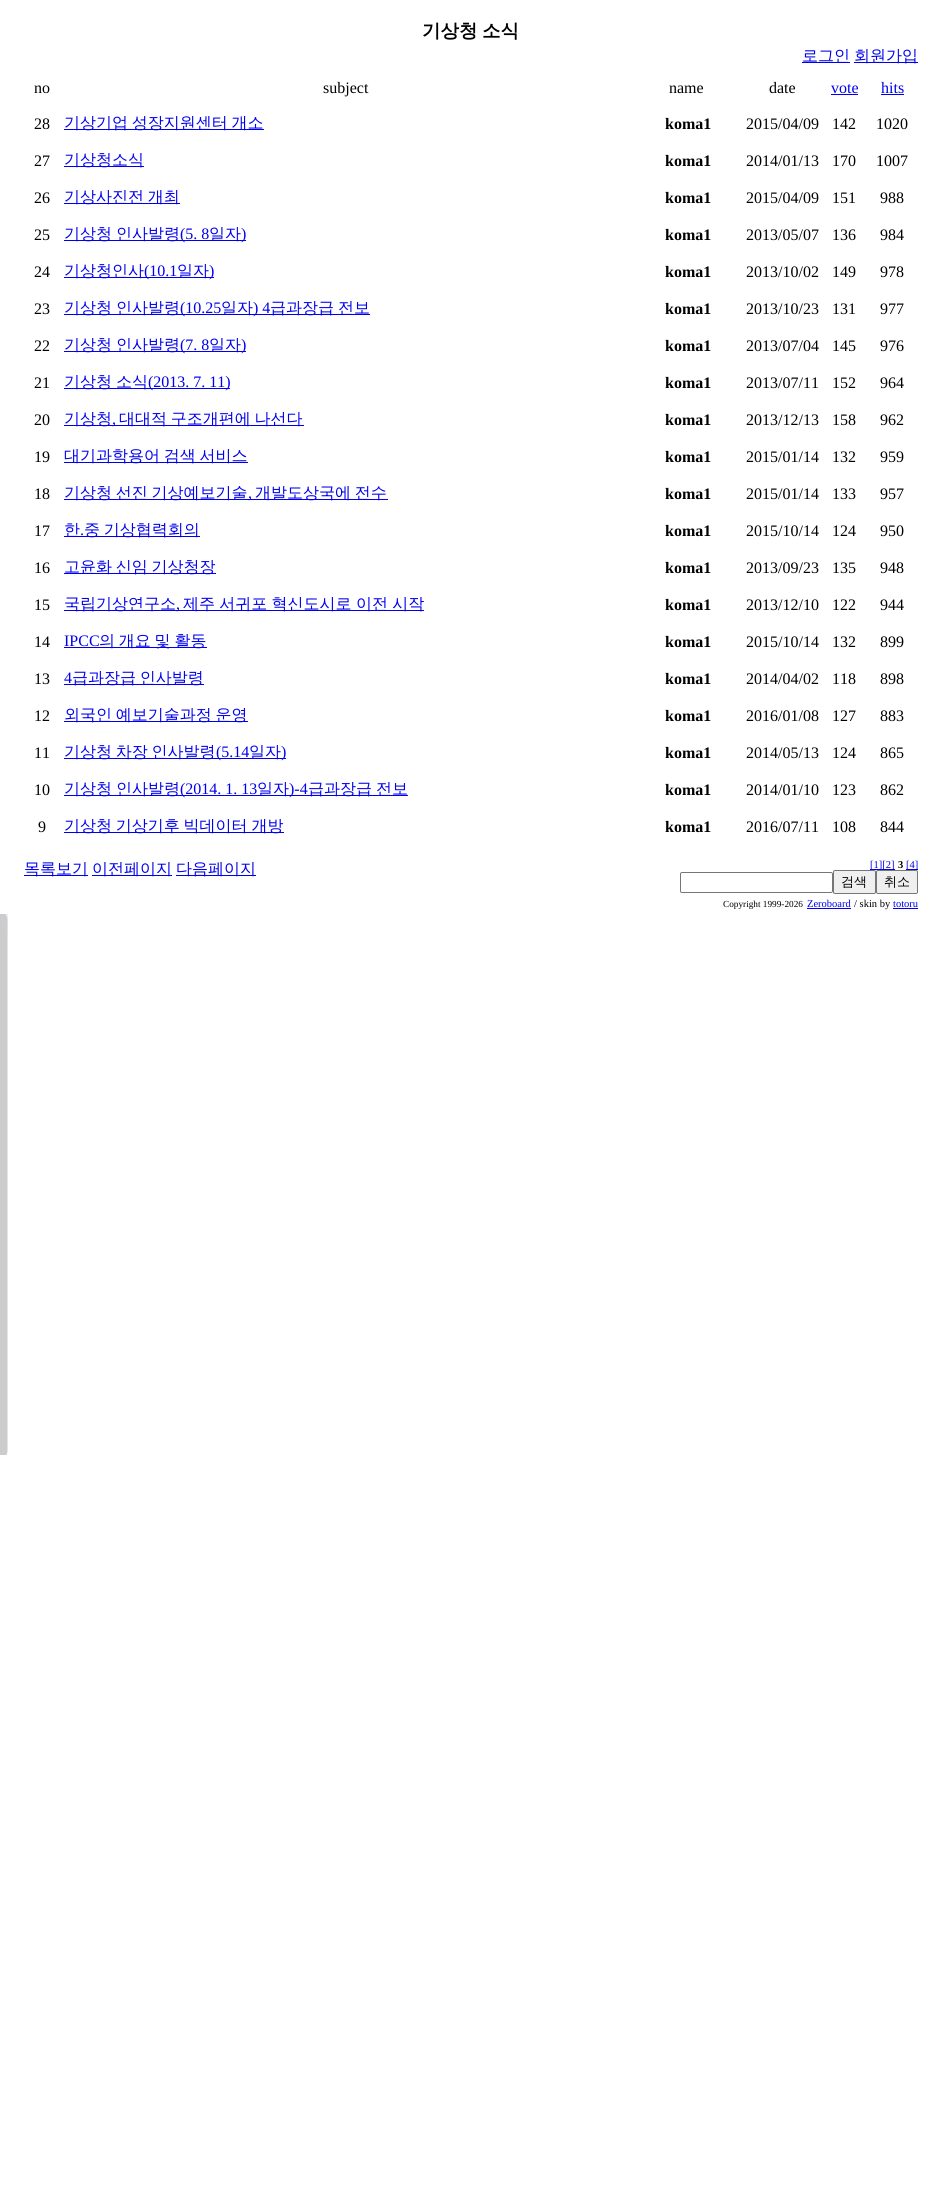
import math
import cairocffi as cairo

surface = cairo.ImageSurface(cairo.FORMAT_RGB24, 942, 2198)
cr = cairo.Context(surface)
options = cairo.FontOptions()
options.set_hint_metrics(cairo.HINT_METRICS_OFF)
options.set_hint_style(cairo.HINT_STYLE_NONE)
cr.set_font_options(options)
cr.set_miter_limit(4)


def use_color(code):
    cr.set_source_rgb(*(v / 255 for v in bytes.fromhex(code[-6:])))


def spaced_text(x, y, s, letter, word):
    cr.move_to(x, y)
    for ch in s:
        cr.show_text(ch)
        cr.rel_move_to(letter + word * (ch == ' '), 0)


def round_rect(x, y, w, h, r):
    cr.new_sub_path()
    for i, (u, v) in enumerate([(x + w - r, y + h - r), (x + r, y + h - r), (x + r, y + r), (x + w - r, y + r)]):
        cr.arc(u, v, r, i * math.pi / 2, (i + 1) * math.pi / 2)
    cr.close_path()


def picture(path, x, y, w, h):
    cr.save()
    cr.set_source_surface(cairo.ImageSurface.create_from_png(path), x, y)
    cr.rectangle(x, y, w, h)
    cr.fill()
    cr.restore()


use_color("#ffffff")
cr.paint()
cr.select_font_face("WenQuanYi Zen Hei", cairo.FONT_SLANT_NORMAL, cairo.FONT_WEIGHT_BOLD)
cr.set_font_size(18.5)
use_color("#000000")
spaced_text(422, 37, "기상청 소식", 0, -1)
use_color("#0000ee")
cr.rectangle(802, 62, 48, 1)
cr.fill()
cr.select_font_face("WenQuanYi Zen Hei Medium")
cr.set_font_size(16)
cr.move_to(802, 61)
cr.show_text("로그인")
cr.rectangle(854, 62, 64, 1)
cr.fill()
cr.move_to(854, 61)
cr.show_text("회원가입")
cr.select_font_face("Liberation Serif")
use_color("#000000")
cr.move_to(34, 93)
cr.show_text("no")
cr.move_to(323, 93)
cr.show_text("subject")
cr.move_to(669, 93)
cr.show_text("name")
cr.move_to(769, 93)
cr.show_text("date")
use_color("#0000ee")
cr.move_to(831, 93)
cr.show_text("vote")
cr.rectangle(831, 94, 27, 1)
cr.fill()
cr.move_to(881, 93)
cr.show_text("hits")
cr.rectangle(881, 94, 23, 1)
cr.fill()
use_color("#000000")
cr.move_to(34, 129)
cr.show_text("28")
use_color("#0000ee")
cr.rectangle(64, 129, 200, 1)
cr.fill()
cr.select_font_face("WenQuanYi Zen Hei Medium")
spaced_text(64, 128, "기상기업 성장지원센터 개소", 0, -1)
cr.select_font_face("Liberation Serif", cairo.FONT_SLANT_NORMAL, cairo.FONT_WEIGHT_BOLD)
use_color("#000000")
cr.move_to(665, 129)
cr.show_text("koma1")
cr.select_font_face("Liberation Serif")
cr.move_to(746, 129)
cr.show_text("2015/04/09")
cr.move_to(832, 129)
cr.show_text("142")
cr.move_to(876, 129)
cr.show_text("1020")
cr.move_to(34, 166)
cr.show_text("27")
use_color("#0000ee")
cr.rectangle(64, 166, 80, 1)
cr.fill()
cr.select_font_face("WenQuanYi Zen Hei Medium")
cr.move_to(64, 165)
cr.show_text("기상청소식")
cr.select_font_face("Liberation Serif", cairo.FONT_SLANT_NORMAL, cairo.FONT_WEIGHT_BOLD)
use_color("#000000")
cr.move_to(665, 166)
cr.show_text("koma1")
cr.select_font_face("Liberation Serif")
cr.move_to(746, 166)
cr.show_text("2014/01/13")
cr.move_to(832, 166)
cr.show_text("170")
cr.move_to(876, 166)
cr.show_text("1007")
cr.move_to(34, 203)
cr.show_text("26")
use_color("#0000ee")
cr.rectangle(64, 203, 116, 1)
cr.fill()
cr.select_font_face("WenQuanYi Zen Hei Medium")
spaced_text(64, 202, "기상사진전 개최", 0, -1)
cr.select_font_face("Liberation Serif", cairo.FONT_SLANT_NORMAL, cairo.FONT_WEIGHT_BOLD)
use_color("#000000")
cr.move_to(665, 203)
cr.show_text("koma1")
cr.select_font_face("Liberation Serif")
cr.move_to(746, 203)
cr.show_text("2015/04/09")
cr.move_to(832, 203)
cr.show_text("151")
cr.move_to(880, 203)
cr.show_text("988")
cr.move_to(34, 240)
cr.show_text("25")
use_color("#0000ee")
cr.rectangle(64, 240, 182, 1)
cr.fill()
cr.select_font_face("WenQuanYi Zen Hei Medium")
cr.move_to(64, 239)
cr.show_text("기상청")
cr.move_to(116, 239)
cr.show_text("인사발령")
cr.select_font_face("Liberation Serif")
cr.move_to(180, 239)
cr.show_text("(5. 8")
cr.select_font_face("WenQuanYi Zen Hei Medium")
cr.move_to(209, 239)
cr.show_text("일자")
cr.select_font_face("Liberation Serif")
cr.move_to(241, 239)
cr.show_text(")")
cr.select_font_face("Liberation Serif", cairo.FONT_SLANT_NORMAL, cairo.FONT_WEIGHT_BOLD)
use_color("#000000")
cr.move_to(665, 240)
cr.show_text("koma1")
cr.select_font_face("Liberation Serif")
cr.move_to(746, 240)
cr.show_text("2013/05/07")
cr.move_to(832, 240)
cr.show_text("136")
cr.move_to(880, 240)
cr.show_text("984")
cr.move_to(34, 277)
cr.show_text("24")
use_color("#0000ee")
cr.rectangle(64, 277, 150, 1)
cr.fill()
cr.select_font_face("WenQuanYi Zen Hei Medium")
cr.move_to(64, 276)
cr.show_text("기상청인사")
cr.select_font_face("Liberation Serif")
cr.move_to(144, 276)
cr.show_text("(10.1")
cr.select_font_face("WenQuanYi Zen Hei Medium")
cr.move_to(177, 276)
cr.show_text("일자")
cr.select_font_face("Liberation Serif")
cr.move_to(209, 276)
cr.show_text(")")
cr.select_font_face("Liberation Serif", cairo.FONT_SLANT_NORMAL, cairo.FONT_WEIGHT_BOLD)
use_color("#000000")
cr.move_to(665, 277)
cr.show_text("koma1")
cr.select_font_face("Liberation Serif")
cr.move_to(746, 277)
cr.show_text("2013/10/02")
cr.move_to(832, 277)
cr.show_text("149")
cr.move_to(880, 277)
cr.show_text("978")
cr.move_to(34, 314)
cr.show_text("23")
use_color("#0000ee")
cr.rectangle(64, 314, 306, 1)
cr.fill()
cr.select_font_face("WenQuanYi Zen Hei Medium")
cr.move_to(64, 313)
cr.show_text("기상청")
cr.move_to(116, 313)
cr.show_text("인사발령")
cr.select_font_face("Liberation Serif")
cr.move_to(180, 313)
cr.show_text("(10.25")
cr.select_font_face("WenQuanYi Zen Hei Medium")
cr.move_to(221, 313)
cr.show_text("일자")
cr.select_font_face("Liberation Serif")
cr.move_to(253, 313)
cr.show_text(") 4")
cr.select_font_face("WenQuanYi Zen Hei Medium")
cr.move_to(270, 313)
cr.show_text("급과장급")
cr.move_to(338, 313)
cr.show_text("전보")
cr.select_font_face("Liberation Serif", cairo.FONT_SLANT_NORMAL, cairo.FONT_WEIGHT_BOLD)
use_color("#000000")
cr.move_to(665, 314)
cr.show_text("koma1")
cr.select_font_face("Liberation Serif")
cr.move_to(746, 314)
cr.show_text("2013/10/23")
cr.move_to(832, 314)
cr.show_text("131")
cr.move_to(880, 314)
cr.show_text("977")
cr.move_to(34, 351)
cr.show_text("22")
use_color("#0000ee")
cr.rectangle(64, 351, 182, 1)
cr.fill()
cr.select_font_face("WenQuanYi Zen Hei Medium")
cr.move_to(64, 350)
cr.show_text("기상청")
cr.move_to(116, 350)
cr.show_text("인사발령")
cr.select_font_face("Liberation Serif")
cr.move_to(180, 350)
cr.show_text("(7. 8")
cr.select_font_face("WenQuanYi Zen Hei Medium")
cr.move_to(209, 350)
cr.show_text("일자")
cr.select_font_face("Liberation Serif")
cr.move_to(241, 350)
cr.show_text(")")
cr.select_font_face("Liberation Serif", cairo.FONT_SLANT_NORMAL, cairo.FONT_WEIGHT_BOLD)
use_color("#000000")
cr.move_to(665, 351)
cr.show_text("koma1")
cr.select_font_face("Liberation Serif")
cr.move_to(746, 351)
cr.show_text("2013/07/04")
cr.move_to(832, 351)
cr.show_text("145")
cr.move_to(880, 351)
cr.show_text("976")
cr.move_to(34, 388)
cr.show_text("21")
use_color("#0000ee")
cr.rectangle(64, 388, 166, 1)
cr.fill()
cr.select_font_face("WenQuanYi Zen Hei Medium")
cr.move_to(64, 387)
cr.show_text("기상청")
cr.move_to(116, 387)
cr.show_text("소식")
cr.select_font_face("Liberation Serif")
cr.move_to(148, 387)
cr.show_text("(2013. 7. 11)")
cr.select_font_face("Liberation Serif", cairo.FONT_SLANT_NORMAL, cairo.FONT_WEIGHT_BOLD)
use_color("#000000")
cr.move_to(665, 388)
cr.show_text("koma1")
cr.select_font_face("Liberation Serif")
cr.move_to(746, 388)
cr.show_text("2013/07/11")
cr.move_to(832, 388)
cr.show_text("152")
cr.move_to(880, 388)
cr.show_text("964")
cr.move_to(34, 425)
cr.show_text("20")
use_color("#0000ee")
cr.rectangle(64, 425, 240, 1)
cr.fill()
cr.select_font_face("WenQuanYi Zen Hei Medium")
cr.move_to(64, 424)
cr.show_text("기상청")
cr.select_font_face("Liberation Serif")
cr.move_to(112, 424)
cr.show_text(",")
cr.select_font_face("WenQuanYi Zen Hei Medium")
spaced_text(119, 424, "대대적 구조개편에 나선다", 0, -1)
cr.select_font_face("Liberation Serif", cairo.FONT_SLANT_NORMAL, cairo.FONT_WEIGHT_BOLD)
use_color("#000000")
cr.move_to(665, 425)
cr.show_text("koma1")
cr.select_font_face("Liberation Serif")
cr.move_to(746, 425)
cr.show_text("2013/12/13")
cr.move_to(832, 425)
cr.show_text("158")
cr.move_to(880, 425)
cr.show_text("962")
cr.move_to(34, 462)
cr.show_text("19")
use_color("#0000ee")
cr.rectangle(64, 462, 184, 1)
cr.fill()
cr.select_font_face("WenQuanYi Zen Hei Medium")
spaced_text(64, 461, "대기과학용어 검색 서비스", 0, -1)
cr.select_font_face("Liberation Serif", cairo.FONT_SLANT_NORMAL, cairo.FONT_WEIGHT_BOLD)
use_color("#000000")
cr.move_to(665, 462)
cr.show_text("koma1")
cr.select_font_face("Liberation Serif")
cr.move_to(746, 462)
cr.show_text("2015/01/14")
cr.move_to(832, 462)
cr.show_text("132")
cr.move_to(880, 462)
cr.show_text("959")
cr.move_to(34, 499)
cr.show_text("18")
use_color("#0000ee")
cr.rectangle(64, 499, 324, 1)
cr.fill()
cr.select_font_face("WenQuanYi Zen Hei Medium")
spaced_text(64, 498, "기상청 선진 기상예보기술", 0, -1)
cr.select_font_face("Liberation Serif")
cr.move_to(248, 498)
cr.show_text(",")
cr.select_font_face("WenQuanYi Zen Hei Medium")
spaced_text(255, 498, "개발도상국에 전수", 0, -1)
cr.select_font_face("Liberation Serif", cairo.FONT_SLANT_NORMAL, cairo.FONT_WEIGHT_BOLD)
use_color("#000000")
cr.move_to(665, 499)
cr.show_text("koma1")
cr.select_font_face("Liberation Serif")
cr.move_to(746, 499)
cr.show_text("2015/01/14")
cr.move_to(832, 499)
cr.show_text("133")
cr.move_to(880, 499)
cr.show_text("957")
cr.move_to(34, 536)
cr.show_text("17")
use_color("#0000ee")
cr.rectangle(64, 536, 136, 1)
cr.fill()
cr.select_font_face("WenQuanYi Zen Hei Medium")
cr.move_to(64, 535)
cr.show_text("한")
cr.select_font_face("Liberation Serif")
cr.move_to(80, 535)
cr.show_text(".")
cr.select_font_face("WenQuanYi Zen Hei Medium")
spaced_text(84, 535, "중 기상협력회의", 0, -1)
cr.select_font_face("Liberation Serif", cairo.FONT_SLANT_NORMAL, cairo.FONT_WEIGHT_BOLD)
use_color("#000000")
cr.move_to(665, 536)
cr.show_text("koma1")
cr.select_font_face("Liberation Serif")
cr.move_to(746, 536)
cr.show_text("2015/10/14")
cr.move_to(832, 536)
cr.show_text("124")
cr.move_to(880, 536)
cr.show_text("950")
cr.move_to(34, 573)
cr.show_text("16")
use_color("#0000ee")
cr.rectangle(64, 573, 152, 1)
cr.fill()
cr.select_font_face("WenQuanYi Zen Hei Medium")
spaced_text(64, 572, "고윤화 신임 기상청장", 0, -1)
cr.select_font_face("Liberation Serif", cairo.FONT_SLANT_NORMAL, cairo.FONT_WEIGHT_BOLD)
use_color("#000000")
cr.move_to(665, 573)
cr.show_text("koma1")
cr.select_font_face("Liberation Serif")
cr.move_to(746, 573)
cr.show_text("2013/09/23")
cr.move_to(832, 573)
cr.show_text("135")
cr.move_to(880, 573)
cr.show_text("948")
cr.move_to(34, 610)
cr.show_text("15")
use_color("#0000ee")
cr.rectangle(64, 610, 360, 1)
cr.fill()
cr.select_font_face("WenQuanYi Zen Hei Medium")
cr.move_to(64, 609)
cr.show_text("국립기상연구소")
cr.select_font_face("Liberation Serif")
cr.move_to(176, 609)
cr.show_text(",")
cr.select_font_face("WenQuanYi Zen Hei Medium")
spaced_text(183, 609, "제주 서귀포 혁신도시로 이전 시작", 0, -0.5)
cr.select_font_face("Liberation Serif", cairo.FONT_SLANT_NORMAL, cairo.FONT_WEIGHT_BOLD)
use_color("#000000")
cr.move_to(665, 610)
cr.show_text("koma1")
cr.select_font_face("Liberation Serif")
cr.move_to(746, 610)
cr.show_text("2013/12/10")
cr.move_to(832, 610)
cr.show_text("122")
cr.move_to(880, 610)
cr.show_text("944")
cr.move_to(34, 647)
cr.show_text("14")
use_color("#0000ee")
cr.move_to(64, 646)
cr.show_text("IPCC")
cr.rectangle(64, 647, 143, 1)
cr.fill()
cr.select_font_face("WenQuanYi Zen Hei Medium")
spaced_text(99, 646, "의 개요 및 활동", 0, -1)
cr.select_font_face("Liberation Serif", cairo.FONT_SLANT_NORMAL, cairo.FONT_WEIGHT_BOLD)
use_color("#000000")
cr.move_to(665, 647)
cr.show_text("koma1")
cr.select_font_face("Liberation Serif")
cr.move_to(746, 647)
cr.show_text("2015/10/14")
cr.move_to(832, 647)
cr.show_text("132")
cr.move_to(880, 647)
cr.show_text("899")
cr.move_to(34, 684)
cr.show_text("13")
use_color("#0000ee")
cr.move_to(64, 683)
cr.show_text("4")
cr.rectangle(64, 684, 140, 1)
cr.fill()
cr.select_font_face("WenQuanYi Zen Hei Medium")
spaced_text(72, 683, "급과장급 인사발령", 0, -1)
cr.select_font_face("Liberation Serif", cairo.FONT_SLANT_NORMAL, cairo.FONT_WEIGHT_BOLD)
use_color("#000000")
cr.move_to(665, 684)
cr.show_text("koma1")
cr.select_font_face("Liberation Serif")
cr.move_to(746, 684)
cr.show_text("2014/04/02")
cr.move_to(832, 684)
cr.show_text("118")
cr.move_to(880, 684)
cr.show_text("898")
cr.move_to(34, 721)
cr.show_text("12")
use_color("#0000ee")
cr.rectangle(64, 721, 184, 1)
cr.fill()
cr.select_font_face("WenQuanYi Zen Hei Medium")
spaced_text(64, 720, "외국인 예보기술과정 운영", 0, -1)
cr.select_font_face("Liberation Serif", cairo.FONT_SLANT_NORMAL, cairo.FONT_WEIGHT_BOLD)
use_color("#000000")
cr.move_to(665, 721)
cr.show_text("koma1")
cr.select_font_face("Liberation Serif")
cr.move_to(746, 721)
cr.show_text("2016/01/08")
cr.move_to(832, 721)
cr.show_text("127")
cr.move_to(880, 721)
cr.show_text("883")
cr.move_to(34, 758)
cr.show_text("11")
use_color("#0000ee")
cr.rectangle(64, 758, 222, 1)
cr.fill()
cr.select_font_face("WenQuanYi Zen Hei Medium")
spaced_text(64, 757, "기상청 차장 인사발령", 0, -1)
cr.select_font_face("Liberation Serif")
cr.move_to(216, 757)
cr.show_text("(5.14")
cr.select_font_face("WenQuanYi Zen Hei Medium")
cr.move_to(249, 757)
cr.show_text("일자")
cr.select_font_face("Liberation Serif")
cr.move_to(281, 757)
cr.show_text(")")
cr.select_font_face("Liberation Serif", cairo.FONT_SLANT_NORMAL, cairo.FONT_WEIGHT_BOLD)
use_color("#000000")
cr.move_to(665, 758)
cr.show_text("koma1")
cr.select_font_face("Liberation Serif")
cr.move_to(746, 758)
cr.show_text("2014/05/13")
cr.move_to(832, 758)
cr.show_text("124")
cr.move_to(880, 758)
cr.show_text("865")
cr.move_to(34, 795)
cr.show_text("10")
use_color("#0000ee")
cr.rectangle(64, 795, 344, 1)
cr.fill()
cr.select_font_face("WenQuanYi Zen Hei Medium")
cr.move_to(64, 794)
cr.show_text("기상청")
cr.move_to(116, 794)
cr.show_text("인사발령")
cr.select_font_face("Liberation Serif")
cr.move_to(180, 794)
cr.show_text("(2014. 1. 13")
cr.select_font_face("WenQuanYi Zen Hei Medium")
cr.move_to(257, 794)
cr.show_text("일자")
cr.select_font_face("Liberation Serif")
cr.move_to(289, 794)
cr.show_text(")-4")
cr.select_font_face("WenQuanYi Zen Hei Medium")
cr.move_to(308, 794)
cr.show_text("급과장급")
cr.move_to(376, 794)
cr.show_text("전보")
cr.select_font_face("Liberation Serif", cairo.FONT_SLANT_NORMAL, cairo.FONT_WEIGHT_BOLD)
use_color("#000000")
cr.move_to(665, 795)
cr.show_text("koma1")
cr.select_font_face("Liberation Serif")
cr.move_to(746, 795)
cr.show_text("2014/01/10")
cr.move_to(832, 795)
cr.show_text("123")
cr.move_to(880, 795)
cr.show_text("862")
cr.move_to(38, 832)
cr.show_text("9")
use_color("#0000ee")
cr.rectangle(64, 832, 220, 1)
cr.fill()
cr.select_font_face("WenQuanYi Zen Hei Medium")
spaced_text(64, 831, "기상청 기상기후 빅데이터 개방", 0, -1)
cr.select_font_face("Liberation Serif", cairo.FONT_SLANT_NORMAL, cairo.FONT_WEIGHT_BOLD)
use_color("#000000")
cr.move_to(665, 832)
cr.show_text("koma1")
cr.select_font_face("Liberation Serif")
cr.move_to(746, 832)
cr.show_text("2016/07/11")
cr.move_to(832, 832)
cr.show_text("108")
cr.move_to(880, 832)
cr.show_text("844")
use_color("#0000ee")
cr.rectangle(24, 875, 64, 1)
cr.fill()
cr.select_font_face("WenQuanYi Zen Hei Medium")
cr.move_to(24, 874)
cr.show_text("목록보기")
cr.rectangle(92, 875, 80, 1)
cr.fill()
cr.move_to(92, 874)
cr.show_text("이전페이지")
cr.rectangle(176, 875, 80, 1)
cr.fill()
cr.move_to(176, 874)
cr.show_text("다음페이지")
cr.select_font_face("Liberation Serif", cairo.FONT_SLANT_NORMAL, cairo.FONT_WEIGHT_BOLD)
cr.set_font_size(10.5)
use_color("#000000")
cr.move_to(898, 868)
cr.show_text("3")
use_color("#0000ee")
cr.rectangle(906, 869, 12, 1)
cr.fill()
cr.select_font_face("Liberation Serif")
cr.move_to(906, 868)
cr.show_text("[4]")
round_rect(680.5, 872.5, 152, 20, 1.5)
use_color("#767676")
cr.set_line_width(1)
cr.stroke()
use_color("#efefef")
round_rect(833.5, 870.5, 42, 23, 1.5)
cr.fill_preserve()
use_color("#767676")
cr.stroke()
cr.select_font_face("WenQuanYi Zen Hei Medium")
cr.set_font_size(13)
use_color("#000000")
cr.move_to(841, 886)
cr.show_text("검색")
use_color("#efefef")
round_rect(876.5, 870.5, 41, 23, 1.5)
cr.fill_preserve()
use_color("#767676")
cr.stroke()
use_color("#000000")
cr.move_to(884, 886)
cr.show_text("취소")
use_color("#0000ee")
cr.rectangle(870, 869, 25, 1)
cr.fill()
cr.select_font_face("Liberation Serif")
cr.set_font_size(10.5)
cr.move_to(870, 868)
cr.show_text("[1][2]")
cr.set_font_size(9.25)
use_color("#000000")
cr.move_to(723, 907)
cr.show_text("Copyright 1999-2026")
cr.set_font_size(10.5)
use_color("#0000ee")
cr.move_to(807, 907)
cr.show_text("Zeroboard")
cr.rectangle(807, 908, 44, 1)
cr.fill()
use_color("#000000")
cr.move_to(854, 907)
cr.show_text("/ skin by")
use_color("#0000ee")
cr.move_to(893, 907)
cr.show_text("totoru")
cr.rectangle(893, 908, 25, 1)
cr.fill()
picture("img1.png", 0, 914, 8, 541)
surface.write_to_png("result.png")
